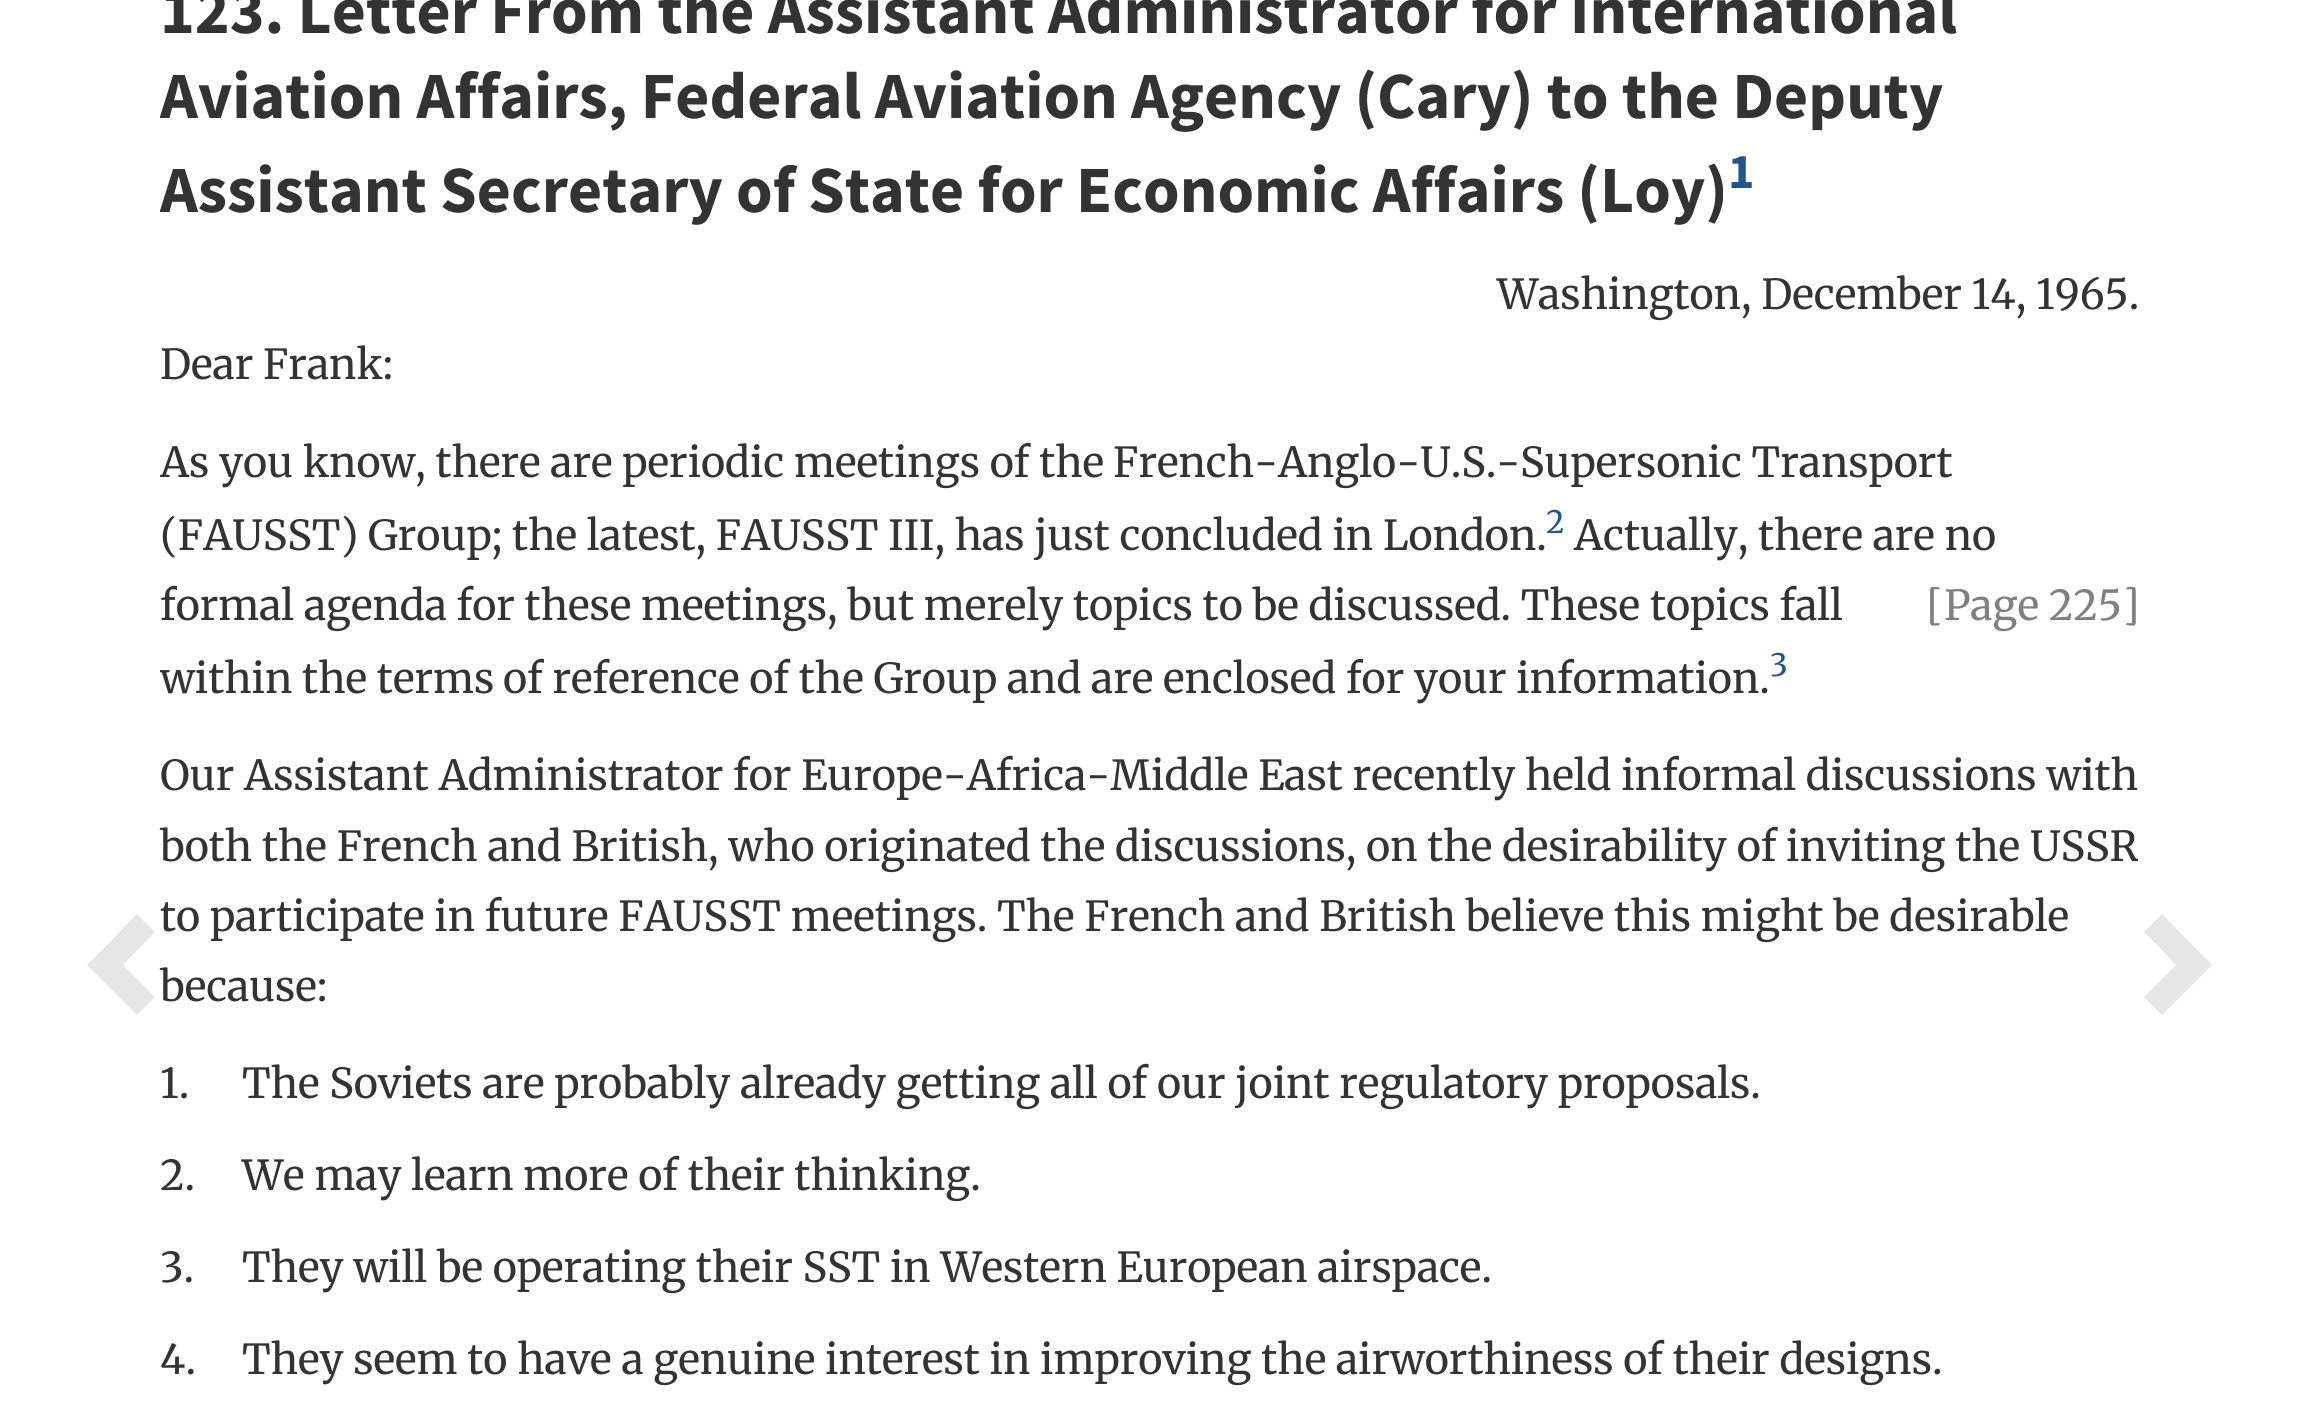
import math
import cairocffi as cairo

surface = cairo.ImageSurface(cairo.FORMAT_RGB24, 2299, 1420)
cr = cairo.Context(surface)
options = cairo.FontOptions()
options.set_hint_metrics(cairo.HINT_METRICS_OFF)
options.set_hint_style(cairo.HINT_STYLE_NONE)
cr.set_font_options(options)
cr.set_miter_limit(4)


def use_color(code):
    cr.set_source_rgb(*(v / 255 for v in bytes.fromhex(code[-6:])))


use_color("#ffffff")
cr.paint()
use_color("#e6e6e6")
cr.new_path()
cr.move_to(155, 932)
cr.line_to(123, 965)
cr.line_to(155, 997)
cr.line_to(137, 1015)
cr.line_to(87, 965)
cr.line_to(137, 914)
cr.close_path()
cr.fill()
cr.select_font_face("Source Sans Pro", cairo.FONT_SLANT_NORMAL, cairo.FONT_WEIGHT_BOLD)
cr.set_font_size(66)
use_color("#333333")
cr.move_to(160, 33)
cr.show_text("123. Letter From the Assistant Administrator for International")
cr.save()
cr.rectangle(160, 0, 1980, 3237)
cr.clip()
cr.move_to(160, 118)
cr.show_text("Aviation Affairs, Federal Aviation Agency (")
cr.restore()
cr.move_to(1377, 118)
cr.show_text("Cary) to the Deputy")
cr.save()
cr.rectangle(160, 0, 1980, 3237)
cr.clip()
cr.move_to(160, 212)
cr.show_text("Assistant Secretary of")
cr.restore()
cr.move_to(808, 212)
cr.show_text("State for Economic Affairs (Loy)")
cr.set_font_size(50)
use_color("#205493")
cr.move_to(1728, 188)
cr.show_text("1")
cr.select_font_face("Merriweather")
cr.set_font_size(41.25)
use_color("#333333")
cr.move_to(1497, 309)
cr.show_text("Washington, December 14, 1965.")
cr.move_to(160, 379)
cr.show_text("Dear Frank:")
cr.save()
cr.rectangle(160, 0, 1980, 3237)
cr.clip()
cr.move_to(160, 477)
cr.show_text("As you know, there are periodic meetings of the")
cr.restore()
cr.move_to(1113, 477)
cr.show_text("French-Anglo-U.S.-Supersonic Transport")
cr.move_to(160, 550)
cr.show_text("(FAUSST) Group; the latest, FAUSST III, has just concluded in London.")
cr.set_font_size(31)
use_color("#205493")
cr.move_to(1546, 533)
cr.show_text("2")
cr.set_font_size(41.25)
use_color("#333333")
cr.move_to(1574, 550)
cr.show_text("Actually, there are no")
cr.move_to(160, 620)
cr.show_text("formal agenda for these meetings, but merely topics to be discussed. These topics fall")
use_color("#808080")
cr.move_to(1926, 620)
cr.show_text("[Page 225]")
cr.save()
cr.rectangle(160, 0, 1980, 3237)
cr.clip()
use_color("#333333")
cr.move_to(160, 693)
cr.show_text("within the terms")
cr.restore()
use_color("#333333")
cr.move_to(503, 693)
cr.show_text("of reference of the Group and are enclosed for your information.")
cr.set_font_size(31)
use_color("#205493")
cr.move_to(1770, 676)
cr.show_text("3")
cr.set_font_size(41.25)
use_color("#333333")
cr.move_to(160, 790)
cr.show_text("Our Assistant Administrator for Europe-Africa-Middle East recently held informal discussions with")
cr.move_to(160, 861)
cr.show_text("both the French and British, who originated the discussions, on the desirability of inviting the USSR")
cr.move_to(160, 931)
cr.show_text("to participate in future FAUSST meetings. The French and British believe this might be desirable")
cr.move_to(160, 1001)
cr.show_text("because:")
cr.move_to(160, 1098)
cr.show_text("1.")
cr.move_to(242, 1098)
cr.show_text("The Soviets are probably already getting all of our joint regulatory proposals.")
cr.move_to(160, 1190)
cr.show_text("2.")
cr.move_to(242, 1190)
cr.show_text("We may learn more of their thinking.")
cr.move_to(160, 1282)
cr.show_text("3.")
cr.move_to(242, 1282)
cr.show_text("They will be operating their SST in Western European airspace.")
cr.move_to(160, 1374)
cr.show_text("4.")
cr.move_to(242, 1374)
cr.show_text("They seem to have a genuine interest in improving the airworthiness of their designs.")
use_color("#e6e6e6")
cr.new_path()
cr.move_to(2212, 965)
cr.line_to(2162, 1015)
cr.line_to(2144, 997)
cr.line_to(2176, 965)
cr.line_to(2144, 932)
cr.line_to(2162, 914)
cr.close_path()
cr.fill()
surface.write_to_png("result.png")
